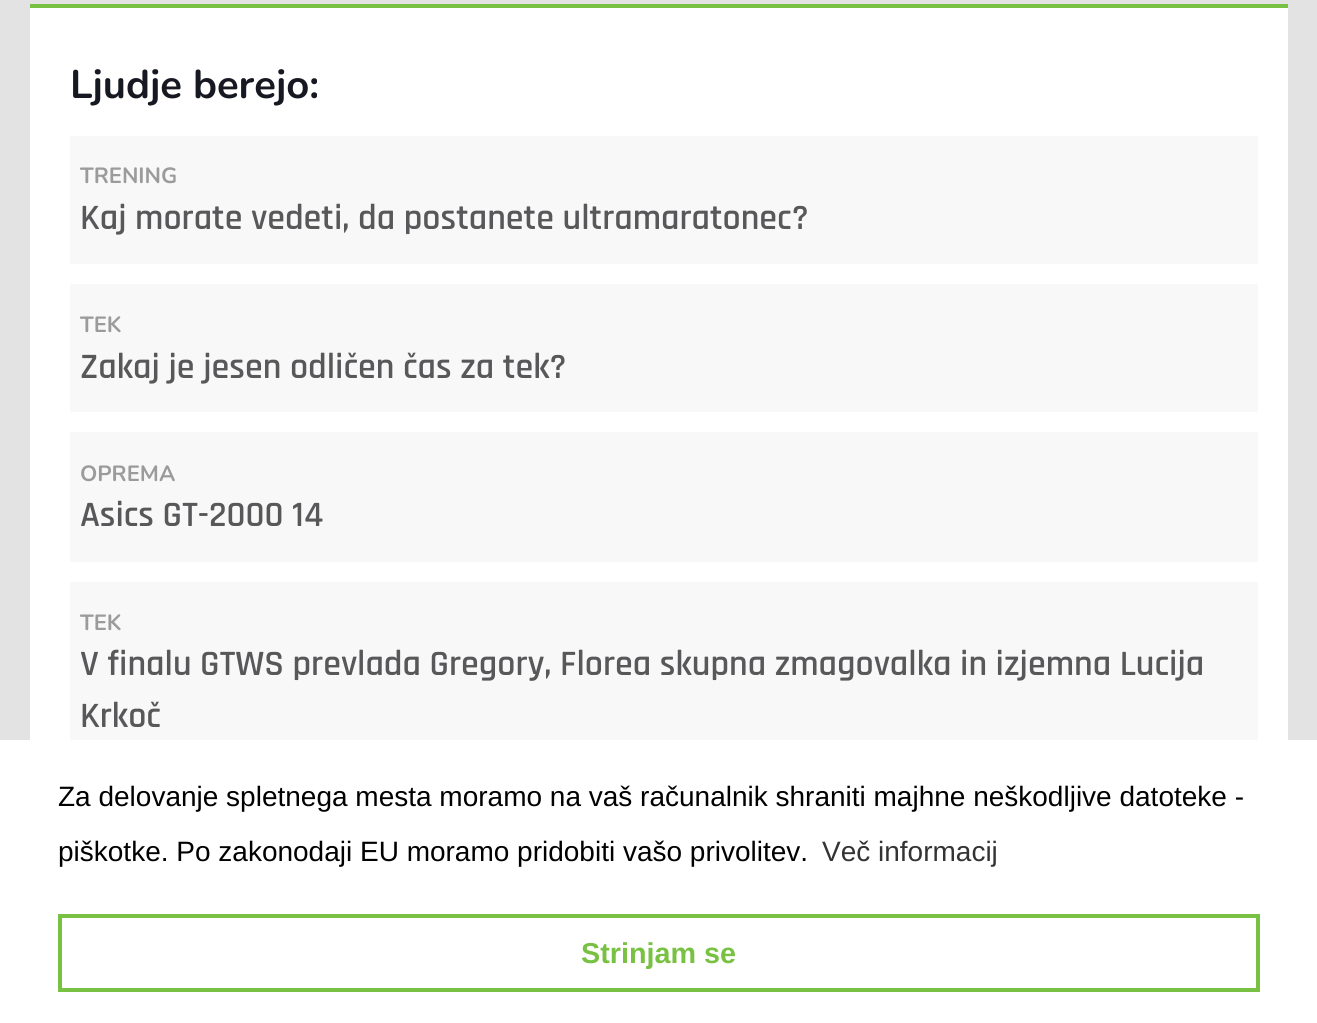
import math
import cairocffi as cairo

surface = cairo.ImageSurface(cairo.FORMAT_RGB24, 1317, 1023)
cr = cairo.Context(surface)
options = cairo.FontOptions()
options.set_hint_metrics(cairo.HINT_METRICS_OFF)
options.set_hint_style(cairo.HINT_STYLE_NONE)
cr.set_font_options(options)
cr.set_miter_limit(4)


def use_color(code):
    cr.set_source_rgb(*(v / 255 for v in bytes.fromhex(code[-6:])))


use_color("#e3e3e3")
cr.paint()
use_color("#ffffff")
cr.rectangle(30, 8, 1258, 732)
cr.fill()
use_color("#78c142")
cr.rectangle(30, 4, 1258, 4)
cr.fill()
cr.select_font_face("Nunito", cairo.FONT_SLANT_NORMAL, cairo.FONT_WEIGHT_BOLD)
cr.set_font_size(40)
use_color("#161921")
cr.move_to(70, 98)
cr.show_text("Ljudje berejo:")
use_color("#f8f8f8")
cr.rectangle(70, 136, 1188, 128)
cr.fill()
cr.set_font_size(22)
use_color("#9b9b9b")
cr.move_to(80, 183)
cr.show_text("TRENING")
cr.select_font_face("Rajdhani SemiBold")
cr.set_font_size(36)
use_color("#58585a")
cr.move_to(80, 229)
cr.show_text("Kaj morate vedeti, da postanete ultramaratonec?")
use_color("#f8f8f8")
cr.rectangle(70, 284, 1188, 128)
cr.fill()
cr.select_font_face("Nunito", cairo.FONT_SLANT_NORMAL, cairo.FONT_WEIGHT_BOLD)
cr.set_font_size(22)
use_color("#9b9b9b")
cr.move_to(80, 332)
cr.show_text("TEK")
cr.select_font_face("Rajdhani SemiBold")
cr.set_font_size(36)
use_color("#58585a")
cr.move_to(80, 378)
cr.show_text("Zakaj je jesen odličen čas za tek?")
use_color("#f8f8f8")
cr.rectangle(70, 432, 1188, 130)
cr.fill()
cr.select_font_face("Nunito", cairo.FONT_SLANT_NORMAL, cairo.FONT_WEIGHT_BOLD)
cr.set_font_size(22)
use_color("#9b9b9b")
cr.move_to(80, 481)
cr.show_text("OPREMA")
cr.select_font_face("Rajdhani SemiBold")
cr.set_font_size(36)
use_color("#58585a")
cr.move_to(80, 526)
cr.show_text("Asics GT-2000 14")
use_color("#f8f8f8")
cr.rectangle(70, 582, 1188, 158)
cr.fill()
cr.select_font_face("Nunito", cairo.FONT_SLANT_NORMAL, cairo.FONT_WEIGHT_BOLD)
cr.set_font_size(22)
use_color("#9b9b9b")
cr.move_to(80, 630)
cr.show_text("TEK")
cr.select_font_face("Rajdhani SemiBold")
cr.set_font_size(36)
use_color("#58585a")
cr.move_to(80, 675)
cr.show_text("V finalu GTWS prevlada Gregory, Florea skupna zmagovalka in izjemna Lucija")
cr.move_to(80, 727)
cr.show_text("Krkoč")
use_color("#ffffff")
cr.rectangle(0, 740, 1317, 283)
cr.fill()
cr.select_font_face("Liberation Sans")
cr.set_font_size(28)
use_color("#000000")
cr.move_to(58, 806)
cr.show_text("Za delovanje spletnega mesta moramo na vaš računalnik shraniti majhne neškodljive datoteke -")
cr.move_to(58, 861)
cr.show_text("piškotke. Po zakonodaji EU moramo pridobiti vašo privolitev.")
use_color("#333333")
cr.move_to(822, 861)
cr.show_text("Več informacij")
cr.rectangle(60, 916, 1198, 74)
use_color("#78c142")
cr.set_line_width(4)
cr.stroke()
cr.select_font_face("Liberation Sans", cairo.FONT_SLANT_NORMAL, cairo.FONT_WEIGHT_BOLD)
cr.set_font_size(28.75)
cr.move_to(581, 963)
cr.show_text("Strinjam se")
surface.write_to_png("result.png")
